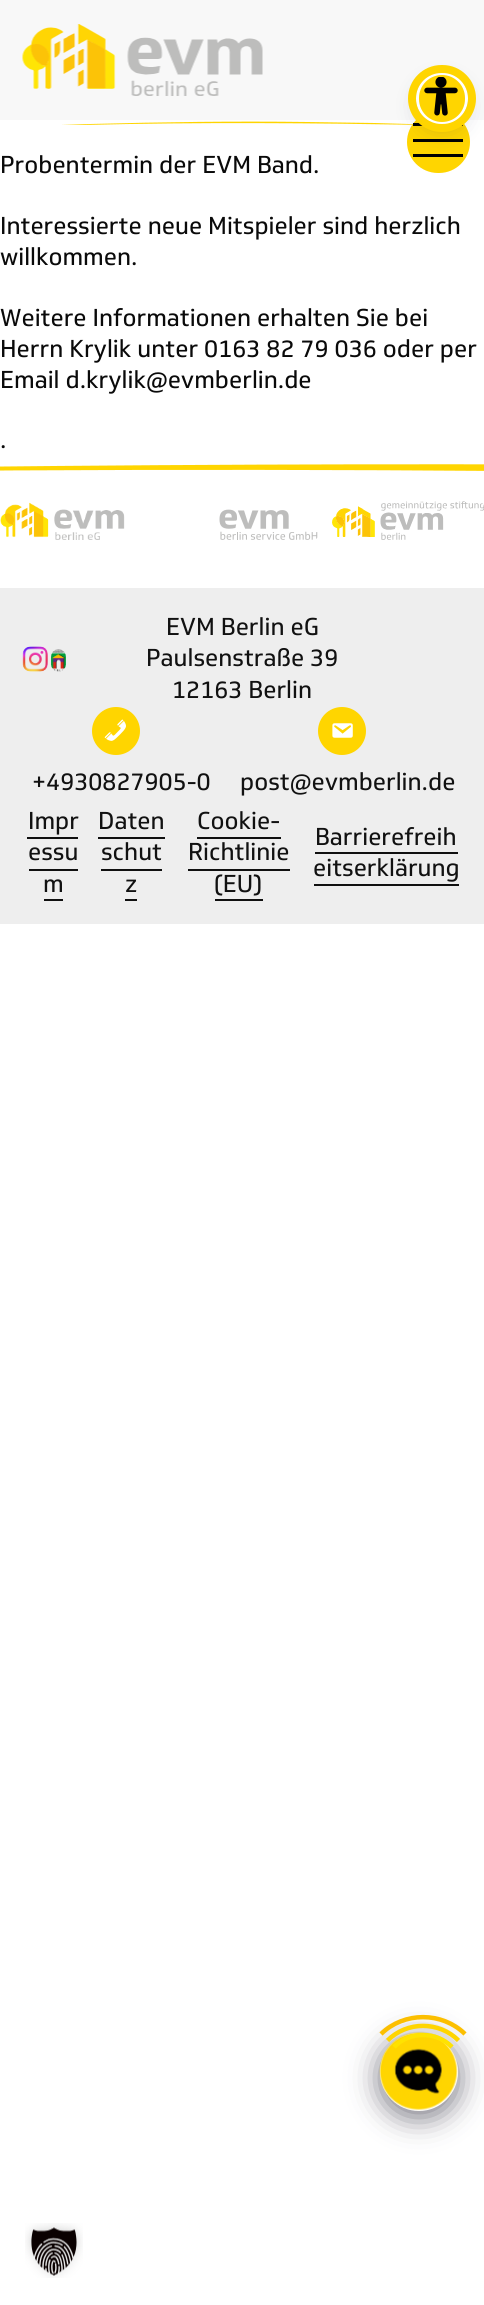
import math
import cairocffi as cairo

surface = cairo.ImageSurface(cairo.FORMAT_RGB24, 484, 2305)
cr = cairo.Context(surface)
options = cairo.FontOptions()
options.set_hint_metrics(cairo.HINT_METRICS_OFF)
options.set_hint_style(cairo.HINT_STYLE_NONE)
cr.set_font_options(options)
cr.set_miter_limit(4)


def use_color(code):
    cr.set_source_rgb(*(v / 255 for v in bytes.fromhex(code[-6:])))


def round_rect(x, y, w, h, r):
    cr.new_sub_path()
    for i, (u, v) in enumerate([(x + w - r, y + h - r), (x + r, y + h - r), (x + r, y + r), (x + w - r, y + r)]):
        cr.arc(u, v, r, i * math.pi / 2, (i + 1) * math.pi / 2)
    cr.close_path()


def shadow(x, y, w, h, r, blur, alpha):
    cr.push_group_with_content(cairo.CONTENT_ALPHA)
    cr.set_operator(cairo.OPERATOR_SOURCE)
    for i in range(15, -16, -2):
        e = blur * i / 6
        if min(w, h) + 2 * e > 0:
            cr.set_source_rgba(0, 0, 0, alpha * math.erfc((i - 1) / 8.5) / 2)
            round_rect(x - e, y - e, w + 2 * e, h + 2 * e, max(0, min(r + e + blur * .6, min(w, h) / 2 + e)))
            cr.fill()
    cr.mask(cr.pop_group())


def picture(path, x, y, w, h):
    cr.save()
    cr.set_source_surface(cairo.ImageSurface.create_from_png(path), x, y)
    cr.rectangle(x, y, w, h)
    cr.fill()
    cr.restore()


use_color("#ffffff")
cr.paint()
use_color("#f8f8f8")
cr.rectangle(0, 0, 484, 120)
cr.fill()
use_color("#ffd500")
cr.new_path()
cr.move_to(409, 124)
cr.line_to(375, 123)
cr.line_to(308, 122)
cr.curve_to(235, 121, 163, 122, 90, 124)
cr.line_to(61, 125)
cr.line_to(84, 125)
cr.curve_to(199, 122, 313, 123, 427, 125)
cr.close_path()
cr.fill()
round_rect(407, 111, 63, 62, 31)
cr.fill()
use_color("#000000")
cr.rectangle(413, 123, 50, 3)
cr.fill()
use_color("#5d6494")
shadow(416, 75, 52, 53, 26, 3, 0.2)
use_color("#000000")
cr.rectangle(413, 139, 50, 3)
cr.fill()
cr.rectangle(413, 154, 50, 3)
cr.fill()
use_color("#252c61")
shadow(416, 80, 52, 52, 26, 11, 0.15)
use_color("#ffd500")
round_rect(417.5, 73.5, 49, 50, 24.5)
cr.fill_preserve()
use_color("#ffffff")
cr.set_line_width(3)
cr.stroke()
round_rect(412, 69, 60, 59, 29.5)
use_color("#ffd500")
cr.set_line_width(8)
cr.stroke()
picture("img1.png", 424, 77, 34, 39)
picture("img2.png", 22, 24, 241, 72)
cr.select_font_face("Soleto")
cr.set_font_size(24)
use_color("#0a0a0a")
cr.move_to(0, 173)
cr.show_text("Probentermin der EVM Band.")
cr.move_to(0, 234)
cr.show_text("Interessierte neue Mitspieler sind herzlich")
cr.move_to(0, 265)
cr.show_text("willkommen.")
cr.move_to(0, 326)
cr.show_text("Weitere Informationen erhalten Sie bei")
cr.move_to(0, 357)
cr.show_text("Herrn Krylik unter 0163 82 79 036 oder per")
cr.move_to(0, 388)
cr.show_text("Email d.krylik@evmberlin.de")
cr.move_to(0, 448)
cr.show_text(".")
use_color("#ffd500")
cr.new_path()
cr.move_to(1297, 478)
cr.curve_to(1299, 475, 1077, 471, 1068, 470)
cr.curve_to(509, 460, 7, 464, -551, 475)
cr.curve_to(-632, 477, -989, 485, -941, 486)
cr.curve_to(-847, 486, -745, 482, -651, 480)
cr.curve_to(113, 463, 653, 469, 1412, 486)
cr.close_path()
cr.fill()
picture("img3.png", 0, 502, 125, 38)
picture("img4.png", 219, 509, 99, 31)
picture("img5.png", 332, 501, 152, 39)
use_color("#eeeeee")
cr.rectangle(0, 588, 484, 336)
cr.fill()
use_color("#111111")
cr.move_to(166, 635)
cr.show_text("EVM Berlin eG")
cr.move_to(146, 666)
cr.show_text("Paulsenstraße 39")
cr.move_to(172, 698)
cr.show_text("12163 Berlin")
picture("img6.png", 22, 646, 26, 26)
picture("img7.png", 51, 649, 15, 23)
use_color("#ffd500")
cr.arc(116, 731, 24, 0, 2 * math.pi)
cr.fill()
picture("img8.png", 104, 719, 22, 22)
use_color("#111111")
cr.move_to(32, 790)
cr.show_text("+4930827905-0")
use_color("#ffd500")
cr.new_path()
cr.arc(342, 731, 24, 0, 2 * math.pi)
cr.fill()
picture("img9.png", 332, 723, 21, 15)
use_color("#111111")
cr.move_to(240, 790)
cr.show_text("post@evmberlin.de")
cr.move_to(28, 829)
cr.show_text("Impr")
use_color("#101010")
cr.rectangle(27, 837, 51, 2)
cr.fill()
use_color("#111111")
cr.move_to(28, 860)
cr.show_text("essu")
cr.move_to(43, 892)
cr.show_text("m")
use_color("#101010")
cr.rectangle(29, 869, 49, 2)
cr.fill()
cr.rectangle(44, 899, 19, 2)
cr.fill()
use_color("#111111")
cr.move_to(98, 829)
cr.show_text("Daten")
cr.move_to(101, 860)
cr.show_text("schut")
use_color("#101010")
cr.rectangle(98, 837, 67, 2)
cr.fill()
use_color("#111111")
cr.move_to(125, 892)
cr.show_text("z")
use_color("#101010")
cr.rectangle(101, 869, 61, 2)
cr.fill()
cr.rectangle(125, 899, 12, 2)
cr.fill()
use_color("#111111")
cr.move_to(197, 829)
cr.show_text("Cookie-")
cr.move_to(188, 860)
cr.show_text("Richtlinie")
use_color("#101010")
cr.rectangle(197, 837, 84, 2)
cr.fill()
use_color("#111111")
cr.move_to(214, 892)
cr.show_text("(EU)")
use_color("#101010")
cr.rectangle(188, 869, 102, 2)
cr.fill()
cr.rectangle(215, 899, 48, 2)
cr.fill()
use_color("#111111")
cr.move_to(315, 845)
cr.show_text("Barrierefreih")
use_color("#101010")
cr.rectangle(315, 852, 143, 2)
cr.fill()
use_color("#111111")
cr.move_to(313, 876)
cr.show_text("eitserklärung")
use_color("#101010")
cr.rectangle(314, 884, 145, 2)
cr.fill()
use_color("#767580")
shadow(380, 2039, 78, 78, 39, 15, 1)
use_color("#ffffff")
cr.arc(419, 2072, 39, 0, 2 * math.pi)
cr.fill()
picture("img10.png", 379, 2032, 79, 79)
cr.new_path()
cr.move_to(394, 2047)
cr.curve_to(409.5, 2031, 436.5, 2031, 452, 2047)
use_color("#ffe200")
cr.set_line_width(4.5)
cr.stroke()
cr.new_path()
cr.move_to(387.5, 2040.5)
cr.curve_to(407, 2021, 439, 2021, 458.5, 2040.5)
use_color("#ffd500")
cr.stroke()
cr.new_path()
cr.move_to(381, 2034)
cr.curve_to(404, 2011.5, 442, 2011.5, 465, 2034)
use_color("#fcbf00")
cr.stroke()
picture("img11.png", 25, 2223, 58, 55)
surface.write_to_png("result.png")
